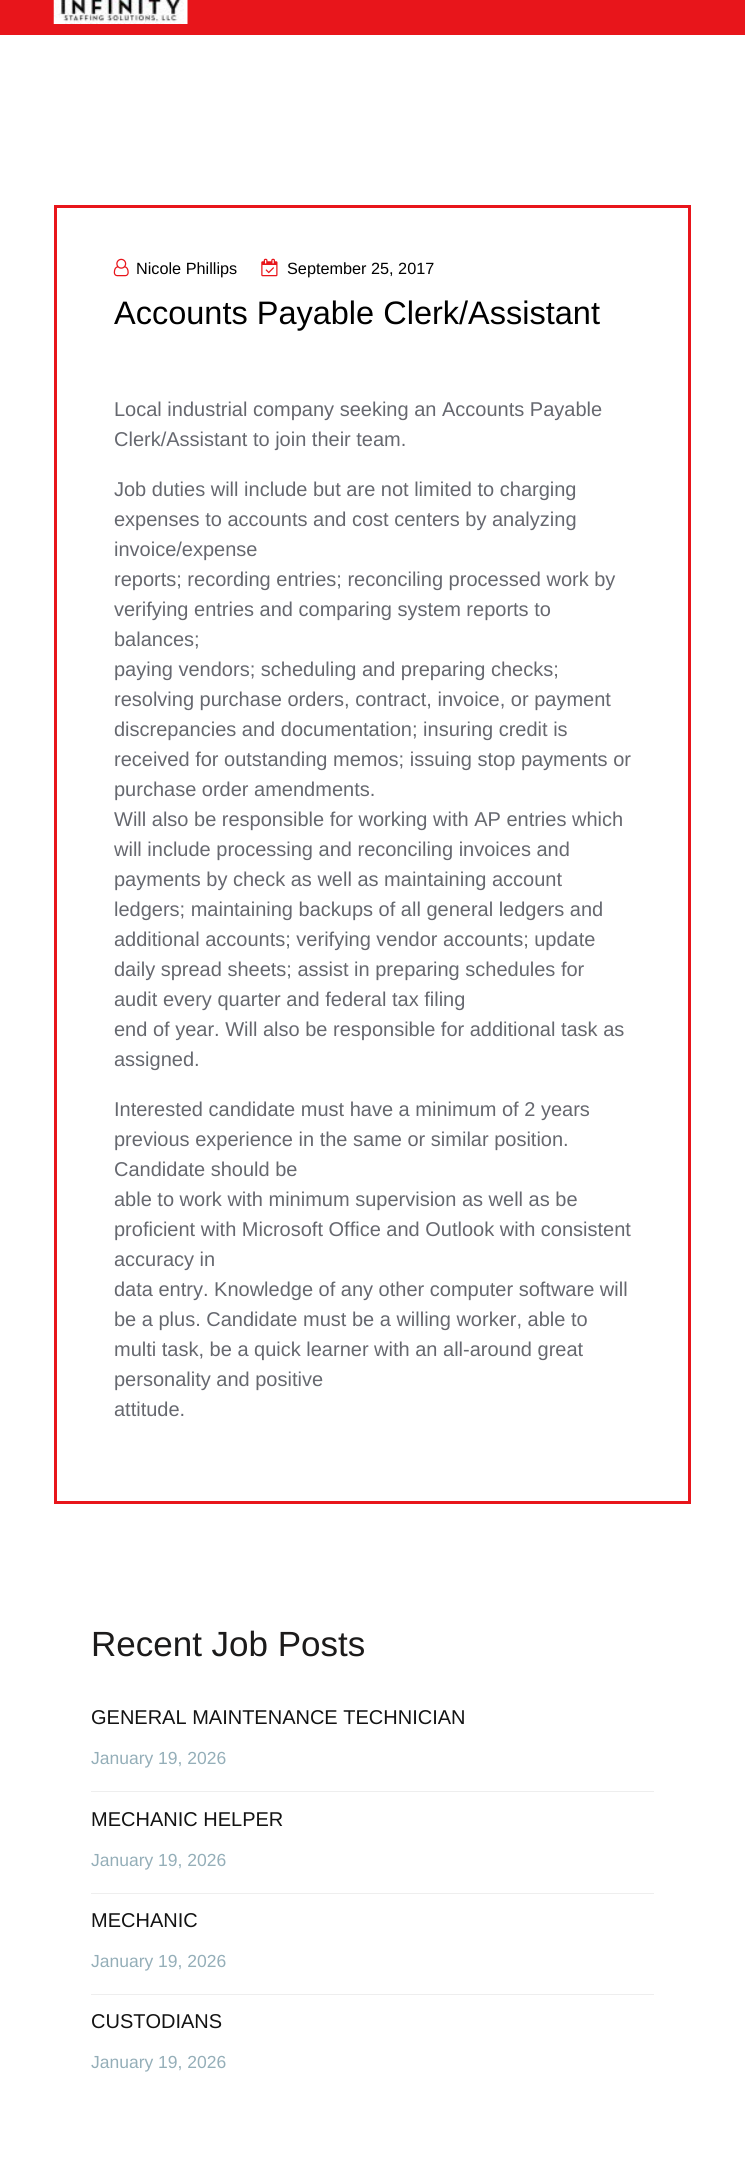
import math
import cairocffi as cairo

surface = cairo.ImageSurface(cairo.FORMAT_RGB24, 745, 2181)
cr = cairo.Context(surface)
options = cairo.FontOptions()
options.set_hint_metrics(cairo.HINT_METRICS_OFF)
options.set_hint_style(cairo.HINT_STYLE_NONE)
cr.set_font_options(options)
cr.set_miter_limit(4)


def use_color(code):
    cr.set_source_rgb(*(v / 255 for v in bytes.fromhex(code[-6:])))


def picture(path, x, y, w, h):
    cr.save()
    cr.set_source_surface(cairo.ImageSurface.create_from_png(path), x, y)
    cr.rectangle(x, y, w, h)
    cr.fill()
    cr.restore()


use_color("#ffffff")
cr.paint()
use_color("#e8151b")
cr.rectangle(0, 0, 745, 35)
cr.fill()
picture("img1.png", 53, 0, 135, 24)
cr.rectangle(55.5, 206.5, 634, 1296)
cr.set_line_width(3)
cr.stroke()
picture("img2.png", 113, 258, 16, 19)
cr.select_font_face("Liberation Sans")
cr.set_font_size(16.25)
use_color("#000000")
cr.move_to(136, 274)
cr.show_text("Nicole Phillips")
picture("img3.png", 261, 258, 17, 19)
cr.move_to(287, 274)
cr.show_text("September 25, 2017")
cr.set_font_size(32.5)
cr.move_to(114, 324)
cr.show_text("Accounts Payable Clerk/Assistant")
cr.set_font_size(20)
use_color("#66686f")
cr.move_to(114, 416)
cr.show_text("Local industrial company seeking an Accounts Payable")
cr.move_to(114, 446)
cr.show_text("Clerk/Assistant to join their team.")
cr.move_to(114, 496)
cr.show_text("Job duties will include but are not limited to charging")
cr.move_to(114, 526)
cr.show_text("expenses to accounts and cost centers by analyzing")
cr.move_to(114, 556)
cr.show_text("invoice/expense")
cr.move_to(114, 586)
cr.show_text("reports; recording entries; reconciling processed work by")
cr.move_to(114, 616)
cr.show_text("verifying entries and comparing system reports to")
cr.move_to(114, 646)
cr.show_text("balances;")
cr.move_to(114, 676)
cr.show_text("paying vendors; scheduling and preparing checks;")
cr.move_to(114, 706)
cr.show_text("resolving purchase orders, contract, invoice, or payment")
cr.move_to(114, 736)
cr.show_text("discrepancies and documentation; insuring credit is")
cr.move_to(114, 766)
cr.show_text("received for outstanding memos; issuing stop payments or")
cr.move_to(114, 796)
cr.show_text("purchase order amendments.")
cr.move_to(114, 826)
cr.show_text("Will also be responsible for working with AP entries which")
cr.move_to(114, 856)
cr.show_text("will include processing and reconciling invoices and")
cr.move_to(114, 886)
cr.show_text("payments by check as well as maintaining account")
cr.move_to(114, 916)
cr.show_text("ledgers; maintaining backups of all general ledgers and")
cr.move_to(114, 946)
cr.show_text("additional accounts; verifying vendor accounts; update")
cr.move_to(114, 976)
cr.show_text("daily spread sheets; assist in preparing schedules for")
cr.move_to(114, 1006)
cr.show_text("audit every quarter and federal tax filing")
cr.move_to(114, 1036)
cr.show_text("end of year. Will also be responsible for additional task as")
cr.move_to(114, 1066)
cr.show_text("assigned.")
cr.move_to(114, 1116)
cr.show_text("Interested candidate must have a minimum of 2 years")
cr.move_to(114, 1146)
cr.show_text("previous experience in the same or similar position.")
cr.move_to(114, 1176)
cr.show_text("Candidate should be")
cr.move_to(114, 1206)
cr.show_text("able to work with minimum supervision as well as be")
cr.move_to(114, 1236)
cr.show_text("proficient with Microsoft Office and Outlook with consistent")
cr.move_to(114, 1266)
cr.show_text("accuracy in")
cr.move_to(114, 1296)
cr.show_text("data entry. Knowledge of any other computer software will")
cr.move_to(114, 1326)
cr.show_text("be a plus. Candidate must be a willing worker, able to")
cr.move_to(114, 1356)
cr.show_text("multi task, be a quick learner with an all-around great")
cr.move_to(114, 1386)
cr.show_text("personality and positive")
cr.move_to(114, 1416)
cr.show_text("attitude.")
cr.set_font_size(35)
use_color("#1c1b1b")
cr.move_to(91, 1656)
cr.show_text("Recent Job Posts")
use_color("#eeeeee")
cr.rectangle(91, 1791, 563, 1)
cr.fill()
cr.set_font_size(20)
use_color("#131313")
cr.move_to(91, 1724)
cr.show_text("GENERAL MAINTENANCE TECHNICIAN")
cr.set_font_size(17.5)
use_color("#94aeb8")
cr.move_to(91, 1764)
cr.show_text("January 19, 2026")
use_color("#eeeeee")
cr.rectangle(91, 1893, 563, 1)
cr.fill()
cr.set_font_size(20)
use_color("#131313")
cr.move_to(91, 1826)
cr.show_text("MECHANIC HELPER")
cr.set_font_size(17.5)
use_color("#94aeb8")
cr.move_to(91, 1866)
cr.show_text("January 19, 2026")
use_color("#eeeeee")
cr.rectangle(91, 1994, 563, 1)
cr.fill()
cr.set_font_size(20)
use_color("#131313")
cr.move_to(91, 1927)
cr.show_text("MECHANIC")
cr.set_font_size(17.5)
use_color("#94aeb8")
cr.move_to(91, 1967)
cr.show_text("January 19, 2026")
cr.set_font_size(20)
use_color("#131313")
cr.move_to(91, 2028)
cr.show_text("CUSTODIANS")
cr.set_font_size(17.5)
use_color("#94aeb8")
cr.move_to(91, 2068)
cr.show_text("January 19, 2026")
surface.write_to_png("result.png")
